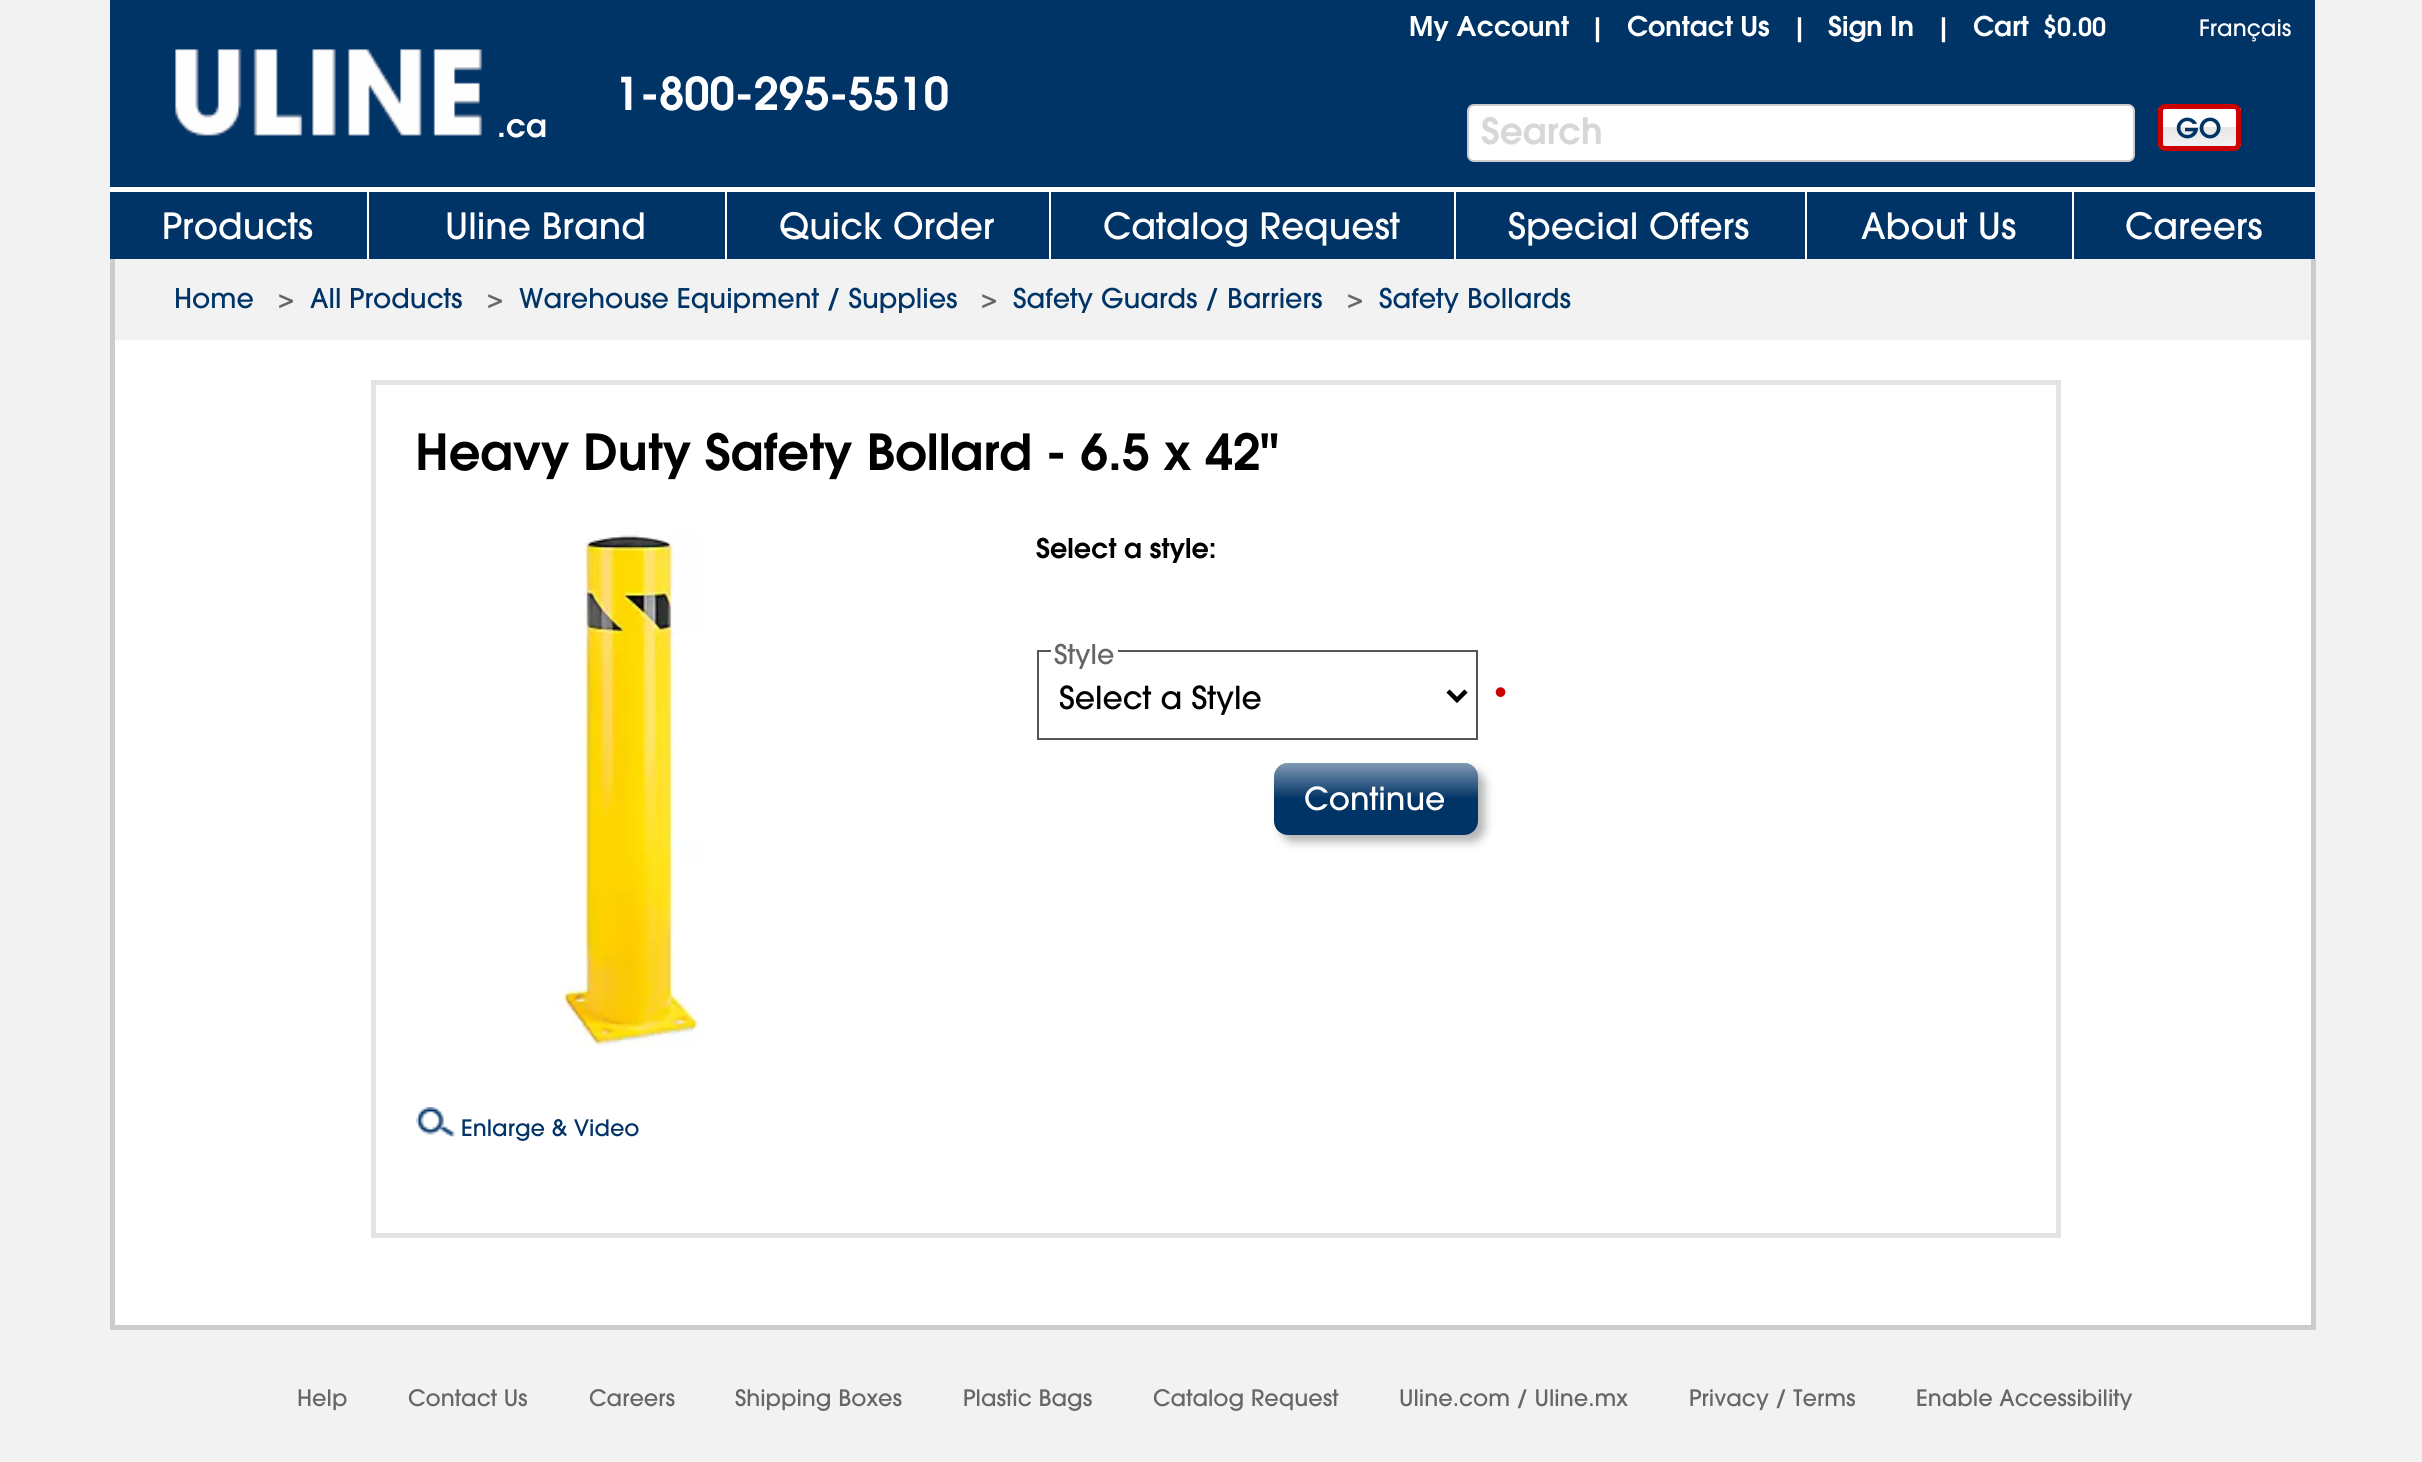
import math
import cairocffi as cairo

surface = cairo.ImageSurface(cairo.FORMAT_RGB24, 2422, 1462)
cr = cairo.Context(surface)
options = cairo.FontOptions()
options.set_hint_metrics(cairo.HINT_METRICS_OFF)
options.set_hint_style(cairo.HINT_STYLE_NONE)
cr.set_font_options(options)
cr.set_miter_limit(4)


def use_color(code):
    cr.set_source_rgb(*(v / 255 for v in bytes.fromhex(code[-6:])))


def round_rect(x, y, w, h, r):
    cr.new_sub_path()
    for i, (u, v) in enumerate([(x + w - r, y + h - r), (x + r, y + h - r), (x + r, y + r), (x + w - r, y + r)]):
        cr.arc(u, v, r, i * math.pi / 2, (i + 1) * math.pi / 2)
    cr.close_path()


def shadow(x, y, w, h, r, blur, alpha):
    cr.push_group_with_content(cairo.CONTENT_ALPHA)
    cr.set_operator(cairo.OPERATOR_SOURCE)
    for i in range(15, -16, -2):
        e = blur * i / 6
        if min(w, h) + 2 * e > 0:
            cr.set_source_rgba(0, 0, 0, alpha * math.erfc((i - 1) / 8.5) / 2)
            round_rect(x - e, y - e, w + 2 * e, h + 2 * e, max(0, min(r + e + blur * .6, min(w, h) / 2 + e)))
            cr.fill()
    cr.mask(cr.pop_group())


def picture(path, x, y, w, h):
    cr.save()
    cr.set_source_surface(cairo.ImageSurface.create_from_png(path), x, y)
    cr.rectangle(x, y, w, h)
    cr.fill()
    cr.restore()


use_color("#f2f2f2")
cr.paint()
use_color("#ffffff")
cr.rectangle(115, 340, 2196, 985)
cr.fill()
use_color("#003366")
cr.rectangle(110, 0, 2205, 259)
cr.fill()
cr.select_font_face("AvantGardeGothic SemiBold")
cr.set_font_size(27)
use_color("#ffffff")
cr.move_to(1409, 36)
cr.show_text("My Account")
cr.set_font_size(25)
cr.move_to(1590, 36)
cr.show_text("|")
cr.set_font_size(27)
cr.move_to(1627, 36)
cr.show_text("Contact Us")
cr.set_font_size(25)
cr.move_to(1792, 36)
cr.show_text("|")
cr.set_font_size(27)
cr.move_to(1828, 36)
cr.show_text("Sign In")
cr.set_font_size(25)
cr.move_to(1936, 36)
cr.show_text("|")
cr.set_font_size(27)
cr.move_to(1973, 36)
cr.show_text("Cart")
cr.set_font_size(25)
cr.move_to(2043, 36)
cr.show_text("$0.00")
cr.select_font_face("AvantGardeGothic Medium")
cr.set_font_size(22.5)
cr.move_to(2199, 36)
cr.show_text("Français")
cr.select_font_face("AvantGardeGothic SemiBold")
cr.set_font_size(45)
cr.move_to(615, 110)
cr.show_text("1-800-295-5510")
picture("img1.png", 175, 49, 308, 87)
cr.set_font_size(31.5)
cr.move_to(497, 137)
cr.show_text(".ca")
round_rect(1468, 105, 666, 56, 6)
cr.fill_preserve()
use_color("#cccccc")
cr.stroke()
cr.set_font_size(36)
use_color("#d7d7d7")
cr.move_to(1481, 144)
cr.show_text("Search")
cr.save()
round_rect(2158, 104, 83, 47, 7)
cr.clip()
gradient = cairo.LinearGradient(2199, 108, 2199, 146)
gradient.add_color_stop_rgba(0.5, 1, 1, 1, 1)
gradient.add_color_stop_rgba(0.5, 0.906, 0.906, 0.906, 1)
gradient.add_color_stop_rgba(1, 0.945, 0.945, 0.945, 1)
cr.set_source(gradient)
cr.rectangle(2158, 108, 83, 38)
cr.fill()
cr.restore()
round_rect(2160.5, 106.5, 78, 42, 4.5)
use_color("#cc0000")
cr.set_line_width(5)
cr.stroke()
cr.set_font_size(27)
use_color("#003366")
cr.move_to(2176, 138)
cr.show_text("GO")
use_color("#ffffff")
cr.rectangle(110, 187, 2205, 5)
cr.fill()
cr.rectangle(367, 191, 2, 68)
cr.fill()
cr.select_font_face("AvantGardeGothic Medium")
cr.set_font_size(36)
cr.move_to(162, 239)
cr.show_text("Products")
cr.rectangle(725, 191, 2, 68)
cr.fill()
cr.move_to(445, 239)
cr.show_text("Uline Brand")
cr.rectangle(1049, 191, 2, 68)
cr.fill()
cr.move_to(779, 239)
cr.show_text("Quick Order")
cr.rectangle(1454, 191, 2, 68)
cr.fill()
cr.move_to(1103, 239)
cr.show_text("Catalog Request")
cr.rectangle(1805, 191, 2, 68)
cr.fill()
cr.move_to(1508, 239)
cr.show_text("Special Offers")
cr.rectangle(2072, 191, 2, 68)
cr.fill()
cr.move_to(1861, 239)
cr.show_text("About Us")
cr.move_to(2125, 239)
cr.show_text("Careers")
use_color("#cccccc")
cr.rectangle(2311, 259, 5, 1071)
cr.fill()
cr.rectangle(110, 1325, 2205, 5)
cr.fill()
cr.rectangle(110, 259, 5, 1071)
cr.fill()
cr.set_font_size(27)
use_color("#003366")
cr.move_to(174, 308)
cr.show_text("Home")
use_color("#666666")
cr.move_to(278, 308)
cr.show_text(">")
use_color("#003366")
cr.move_to(310, 308)
cr.show_text("All Products")
use_color("#666666")
cr.move_to(487, 308)
cr.show_text(">")
use_color("#003366")
cr.move_to(519, 308)
cr.show_text("Warehouse Equipment / Supplies")
use_color("#666666")
cr.move_to(981, 308)
cr.show_text(">")
use_color("#003366")
cr.move_to(1013, 308)
cr.show_text("Safety Guards / Barriers")
use_color("#666666")
cr.move_to(1347, 308)
cr.show_text(">")
use_color("#003366")
cr.move_to(1379, 308)
cr.show_text("Safety Bollards")
cr.rectangle(373.5, 382.5, 1685, 853)
use_color("#e5e4e4")
cr.stroke()
cr.select_font_face("AvantGardeGothic SemiBold")
cr.set_font_size(49.5)
use_color("#000000")
cr.move_to(415, 470)
cr.show_text("Heavy Duty Safety Bollard - 6.5 x 42\"")
cr.set_font_size(27)
cr.move_to(1036, 558)
cr.show_text("Select a style:")
cr.rectangle(1038, 651, 439, 88)
use_color("#555555")
cr.set_line_width(2)
cr.stroke()
use_color("#ffffff")
cr.rectangle(1051, 650, 67, 2)
cr.fill()
cr.select_font_face("AvantGardeGothic Medium")
use_color("#666666")
cr.move_to(1054, 664)
cr.show_text("Style")
cr.new_path()
cr.move_to(1448, 691)
cr.line_to(1457, 700)
cr.line_to(1466, 691)
use_color("#000000")
cr.set_line_width(4.5)
cr.stroke()
cr.save()
cr.rectangle(1060, 675, 369, 45)
cr.clip()
cr.set_font_size(31.5)
cr.move_to(1059, 709)
cr.show_text("Select a Style")
cr.restore()
cr.set_font_size(31.5)
use_color("#cc0000")
cr.move_to(1491, 704)
cr.show_text("•")
use_color("#b4b5b5")
shadow(1280, 770, 205, 72, 14, 4.5, 1)
use_color("#003366")
round_rect(1274, 763, 204, 72, 14)
cr.fill()
gradient = cairo.LinearGradient(1376, 763, 1376, 835)
gradient.add_color_stop_rgba(0, 1, 1, 1, 0.5)
gradient.add_color_stop_rgba(0.5, 1, 1, 1, 0)
cr.set_source(gradient)
round_rect(1274, 763, 204, 72, 14)
cr.fill()
use_color("#ffffff")
cr.move_to(1304, 810)
cr.show_text("Continue")
picture("img2.png", 558, 531, 142, 517)
picture("img3.png", 416, 1107, 39, 30)
cr.set_font_size(22.5)
use_color("#003366")
cr.move_to(461, 1136)
cr.show_text("Enlarge & Video")
use_color("#666666")
cr.move_to(297, 1406)
cr.show_text("Help")
cr.move_to(408, 1406)
cr.show_text("Contact Us")
cr.move_to(589, 1406)
cr.show_text("Careers")
cr.move_to(735, 1406)
cr.show_text("Shipping Boxes")
cr.move_to(963, 1406)
cr.show_text("Plastic Bags")
cr.move_to(1153, 1406)
cr.show_text("Catalog Request")
cr.move_to(1399, 1406)
cr.show_text("Uline.com / Uline.mx")
cr.move_to(1689, 1406)
cr.show_text("Privacy / Terms")
cr.move_to(1916, 1406)
cr.show_text("Enable Accessibility")
surface.write_to_png("result.png")
